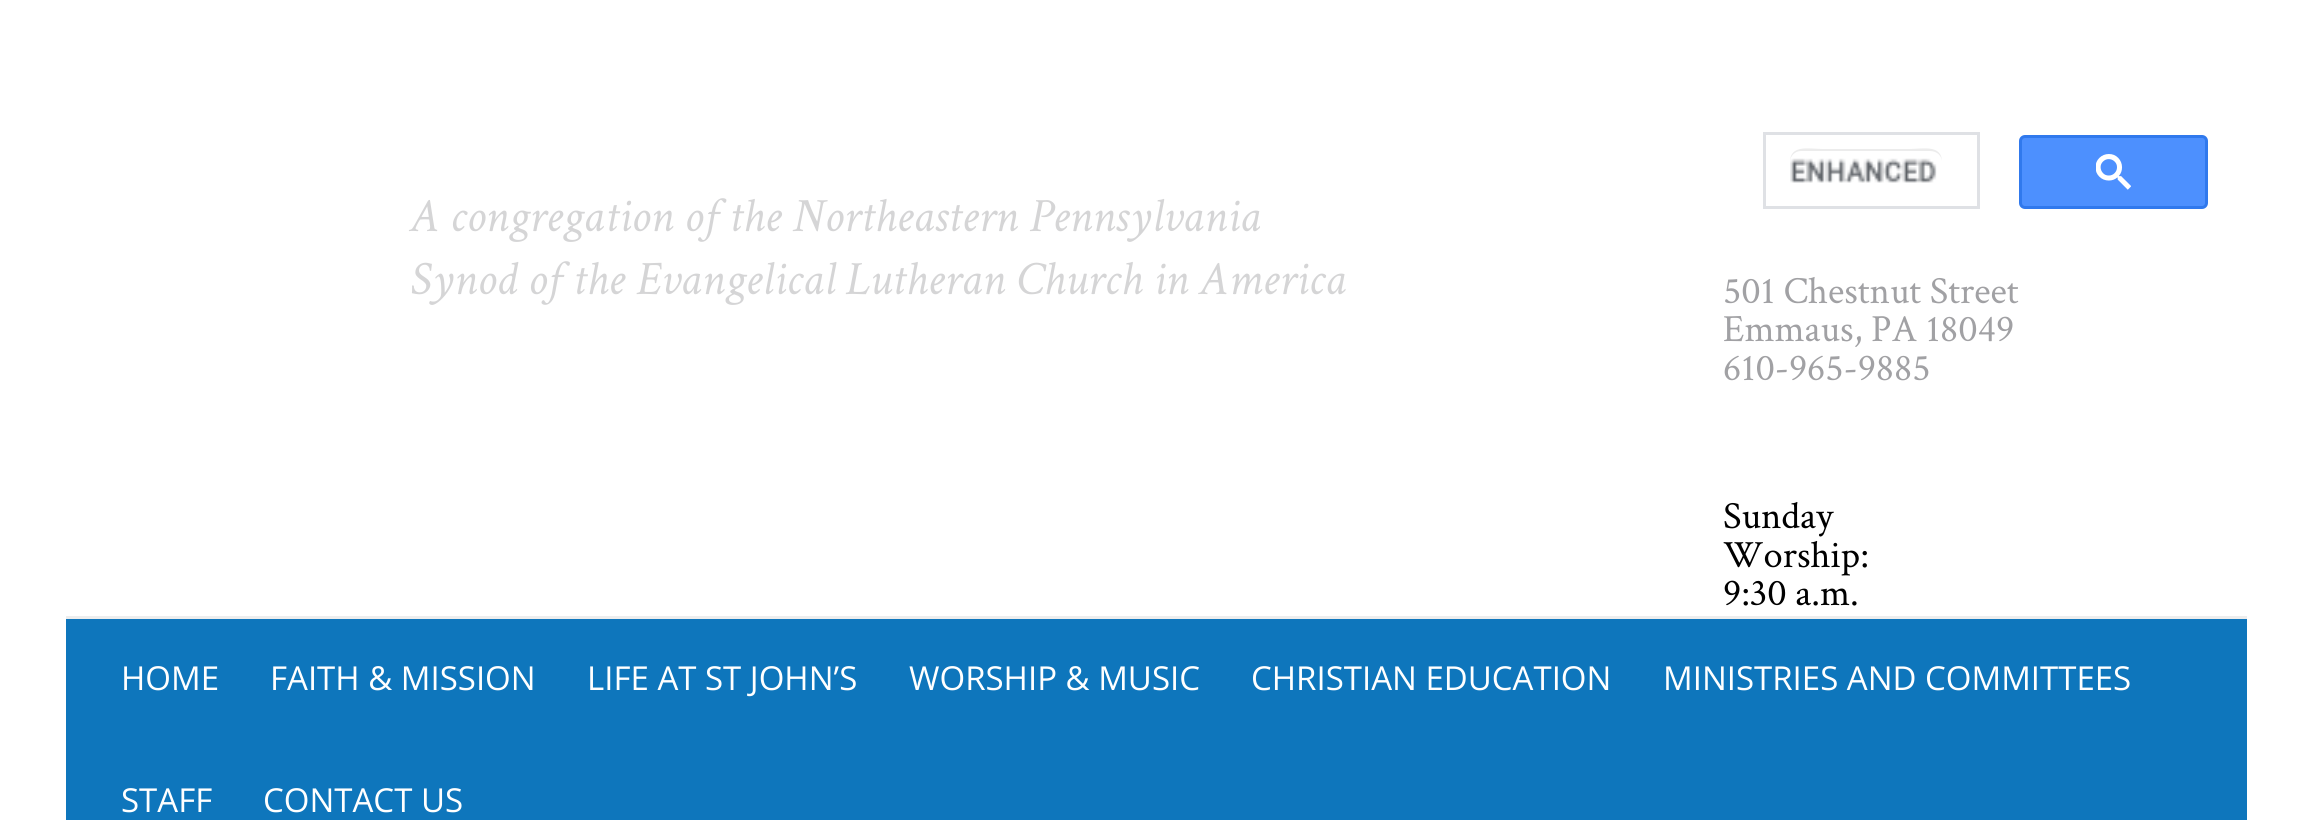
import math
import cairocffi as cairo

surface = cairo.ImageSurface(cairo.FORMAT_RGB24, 2312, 820)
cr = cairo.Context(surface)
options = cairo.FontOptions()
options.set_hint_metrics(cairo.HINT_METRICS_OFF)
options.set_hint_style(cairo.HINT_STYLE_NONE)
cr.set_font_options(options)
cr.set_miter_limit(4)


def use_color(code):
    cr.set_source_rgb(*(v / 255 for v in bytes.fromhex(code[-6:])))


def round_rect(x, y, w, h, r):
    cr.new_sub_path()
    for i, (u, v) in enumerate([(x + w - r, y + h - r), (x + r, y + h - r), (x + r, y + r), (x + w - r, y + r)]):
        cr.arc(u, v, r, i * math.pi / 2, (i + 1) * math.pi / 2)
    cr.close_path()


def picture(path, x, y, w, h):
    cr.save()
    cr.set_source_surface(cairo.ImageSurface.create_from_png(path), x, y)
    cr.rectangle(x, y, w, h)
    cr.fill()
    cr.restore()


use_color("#ffffff")
cr.paint()
cr.select_font_face("Crimson Text", cairo.FONT_SLANT_ITALIC)
cr.set_font_size(48.1)
use_color("#d5d5d6")
cr.move_to(410, 231)
cr.show_text("A congregation of the Northeastern Pennsylvania")
cr.move_to(410, 294)
cr.show_text("Synod of the Evangelical Lutheran Church in America")
cr.rectangle(1764.5, 133.5, 214, 74)
use_color("#dfe1e5")
cr.set_line_width(3)
cr.stroke()
picture("img1.png", 1790, 158, 147, 25)
use_color("#ececec")
cr.new_path()
cr.move_to(1801, 151)
cr.line_to(1930, 151)
cr.curve_to(1937, 151, 1942, 156, 1942, 162)
cr.curve_to(1942, 144, 1922, 149, 1909, 149)
cr.line_to(1823, 149)
cr.curve_to(1810, 149, 1790, 144, 1790, 162)
cr.curve_to(1790, 156, 1795, 151, 1801, 151)
cr.close_path()
cr.fill()
use_color("#4d90fe")
round_rect(2020.5, 136.5, 186, 71, 4.5)
cr.fill_preserve()
use_color("#3079ed")
cr.stroke()
picture("img2.png", 2096, 154, 35, 36)
cr.select_font_face("Crimson Text")
cr.set_font_size(38.5)
use_color("#a1a1a4")
cr.move_to(1723, 303)
cr.show_text("501 Chestnut Street")
cr.move_to(1723, 341)
cr.show_text("Emmaus, PA 18049")
cr.move_to(1723, 380)
cr.show_text("610-965-9885")
use_color("#000000")
cr.move_to(1723, 528)
cr.show_text("Sunday")
cr.move_to(1723, 567)
cr.show_text("Worship:")
cr.move_to(1723, 605)
cr.show_text("9:30 a.m.")
use_color("#0e76bc")
cr.rectangle(66, 619, 2181, 201)
cr.fill()
use_color("#ededed")
cr.rectangle(66, 616, 2181, 3)
cr.fill()
cr.select_font_face("Open Sans")
cr.set_font_size(33)
use_color("#ffffff")
cr.move_to(121, 690)
cr.show_text("HOME")
cr.move_to(270, 690)
cr.show_text("FAITH & MISSION")
cr.move_to(587, 690)
cr.show_text("LIFE AT ST JOHN’S")
cr.move_to(909, 690)
cr.show_text("WORSHIP & MUSIC")
cr.move_to(1251, 690)
cr.show_text("CHRISTIAN EDUCATION")
cr.move_to(1663, 690)
cr.show_text("MINISTRIES AND COMMITTEES")
cr.move_to(121, 812)
cr.show_text("STAFF")
cr.move_to(263, 812)
cr.show_text("CONTACT US")
surface.write_to_png("result.png")
